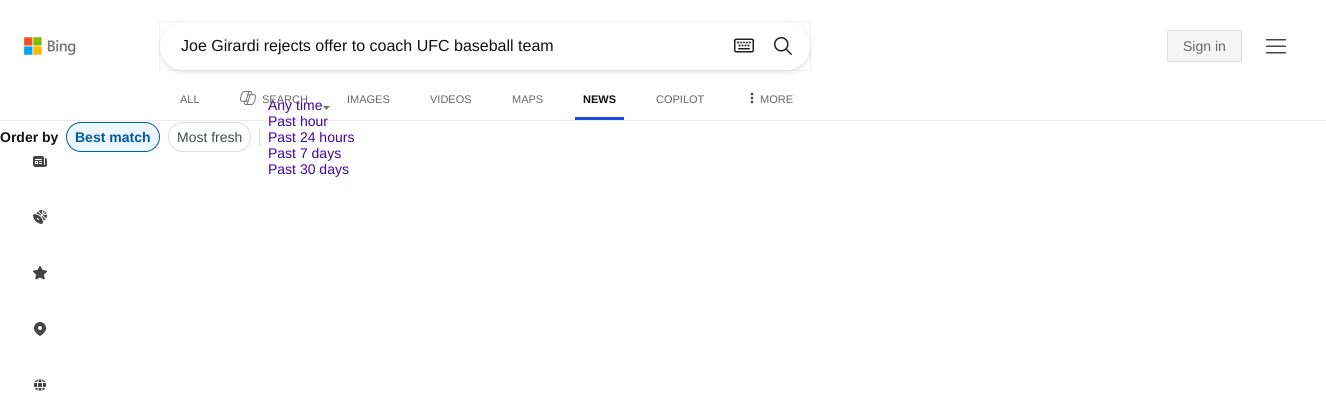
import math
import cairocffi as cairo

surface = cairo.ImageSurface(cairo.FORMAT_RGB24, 1326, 416)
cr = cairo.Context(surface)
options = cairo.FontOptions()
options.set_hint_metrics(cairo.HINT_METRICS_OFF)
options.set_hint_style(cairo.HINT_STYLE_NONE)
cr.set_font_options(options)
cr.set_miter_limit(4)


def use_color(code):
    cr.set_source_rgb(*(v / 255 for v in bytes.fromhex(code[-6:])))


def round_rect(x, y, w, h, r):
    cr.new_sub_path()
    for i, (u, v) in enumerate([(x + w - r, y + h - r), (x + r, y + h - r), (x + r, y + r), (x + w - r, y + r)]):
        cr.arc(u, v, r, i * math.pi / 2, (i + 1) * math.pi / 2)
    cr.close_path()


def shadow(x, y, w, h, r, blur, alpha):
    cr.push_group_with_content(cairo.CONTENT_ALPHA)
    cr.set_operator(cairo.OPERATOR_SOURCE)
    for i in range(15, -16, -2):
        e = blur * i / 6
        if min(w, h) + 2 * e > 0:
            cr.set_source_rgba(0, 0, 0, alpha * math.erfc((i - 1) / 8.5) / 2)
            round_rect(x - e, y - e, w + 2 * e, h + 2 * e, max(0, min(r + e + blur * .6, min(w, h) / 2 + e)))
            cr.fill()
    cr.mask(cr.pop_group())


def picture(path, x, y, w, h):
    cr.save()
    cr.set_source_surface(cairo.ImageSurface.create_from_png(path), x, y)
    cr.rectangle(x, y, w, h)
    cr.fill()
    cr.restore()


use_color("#ffffff")
cr.paint()
use_color("#ececec")
cr.rectangle(0, 120, 1326, 1)
cr.fill()
picture("img1.png", 24, 37, 52, 18)
use_color("#000000")
shadow(159, 23, 652, 50, 25, 2, 0.09)
cr.rectangle(159.5, 21.5, 651, 49)
cr.set_source_rgba(0, 0, 0, 0.05)
cr.set_line_width(1)
cr.stroke()
use_color("#ffffff")
round_rect(160, 22, 650, 48, 24)
cr.fill()
cr.select_font_face("Liberation Sans")
cr.set_font_size(16)
use_color("#111111")
cr.move_to(181, 51)
cr.show_text("Joe Girardi rejects offer to coach UFC baseball team")
picture("img2.png", 734, 38, 20, 15)
picture("img3.png", 774, 37, 18, 18)
use_color("#f5f5f5")
round_rect(1167.5, 30.5, 74, 31, 1.5)
cr.fill_preserve()
use_color("#dddddd")
cr.stroke()
cr.set_font_size(14)
use_color("#666666")
cr.move_to(1183, 51)
cr.show_text("Sign in")
picture("img4.png", 1266, 39, 20, 15)
cr.set_font_size(11)
cr.move_to(180, 103)
cr.show_text("ALL")
picture("img5.png", 240, 91, 16, 14)
cr.set_font_size(14)
use_color("#4007a2")
cr.move_to(268, 110)
cr.show_text("Any time")
cr.set_font_size(11)
use_color("#666666")
cr.move_to(262, 103)
cr.show_text("SEARCH")
cr.move_to(347, 103)
cr.show_text("IMAGES")
cr.move_to(430, 103)
cr.show_text("VIDEOS")
cr.move_to(512, 103)
cr.show_text("MAPS")
cr.select_font_face("Liberation Sans", cairo.FONT_SLANT_NORMAL, cairo.FONT_WEIGHT_BOLD)
use_color("#111111")
cr.move_to(583, 103)
cr.show_text("NEWS")
use_color("#174ae4")
cr.rectangle(575, 117, 49, 3)
cr.fill()
cr.select_font_face("Liberation Sans")
use_color("#666666")
cr.move_to(656, 103)
cr.show_text("COPILOT")
picture("img6.png", 750, 92, 4, 12)
cr.move_to(760, 103)
cr.show_text("MORE")
cr.select_font_face("Liberation Sans", cairo.FONT_SLANT_NORMAL, cairo.FONT_WEIGHT_BOLD)
cr.set_font_size(14)
use_color("#111111")
cr.move_to(0, 142)
cr.show_text("Order by")
use_color("#ebf6ff")
round_rect(66.5, 122.5, 93, 29, 14.5)
cr.fill_preserve()
use_color("#005ba1")
cr.stroke()
cr.move_to(75, 142)
cr.show_text("Best match")
round_rect(168.5, 122.5, 82, 29, 14.5)
use_color("#dadee5")
cr.stroke()
cr.select_font_face("Liberation Sans")
use_color("#474b50")
cr.move_to(177, 142)
cr.show_text("Most fresh")
use_color("#dddddd")
cr.rectangle(259, 128, 1, 18)
cr.fill()
picture("img7.png", 323, 106, 7, 4)
use_color("#4007a2")
cr.move_to(268, 126)
cr.show_text("Past hour")
cr.move_to(268, 142)
cr.show_text("Past 24 hours")
cr.move_to(268, 158)
cr.show_text("Past 7 days")
cr.move_to(268, 174)
cr.show_text("Past 30 days")
picture("img8.png", 33, 156, 14, 11)
picture("img9.png", 33, 210, 14, 14)
picture("img10.png", 33, 266, 14, 14)
picture("img11.png", 34, 322, 12, 14)
picture("img12.png", 34, 379, 12, 12)
surface.write_to_png("result.png")
